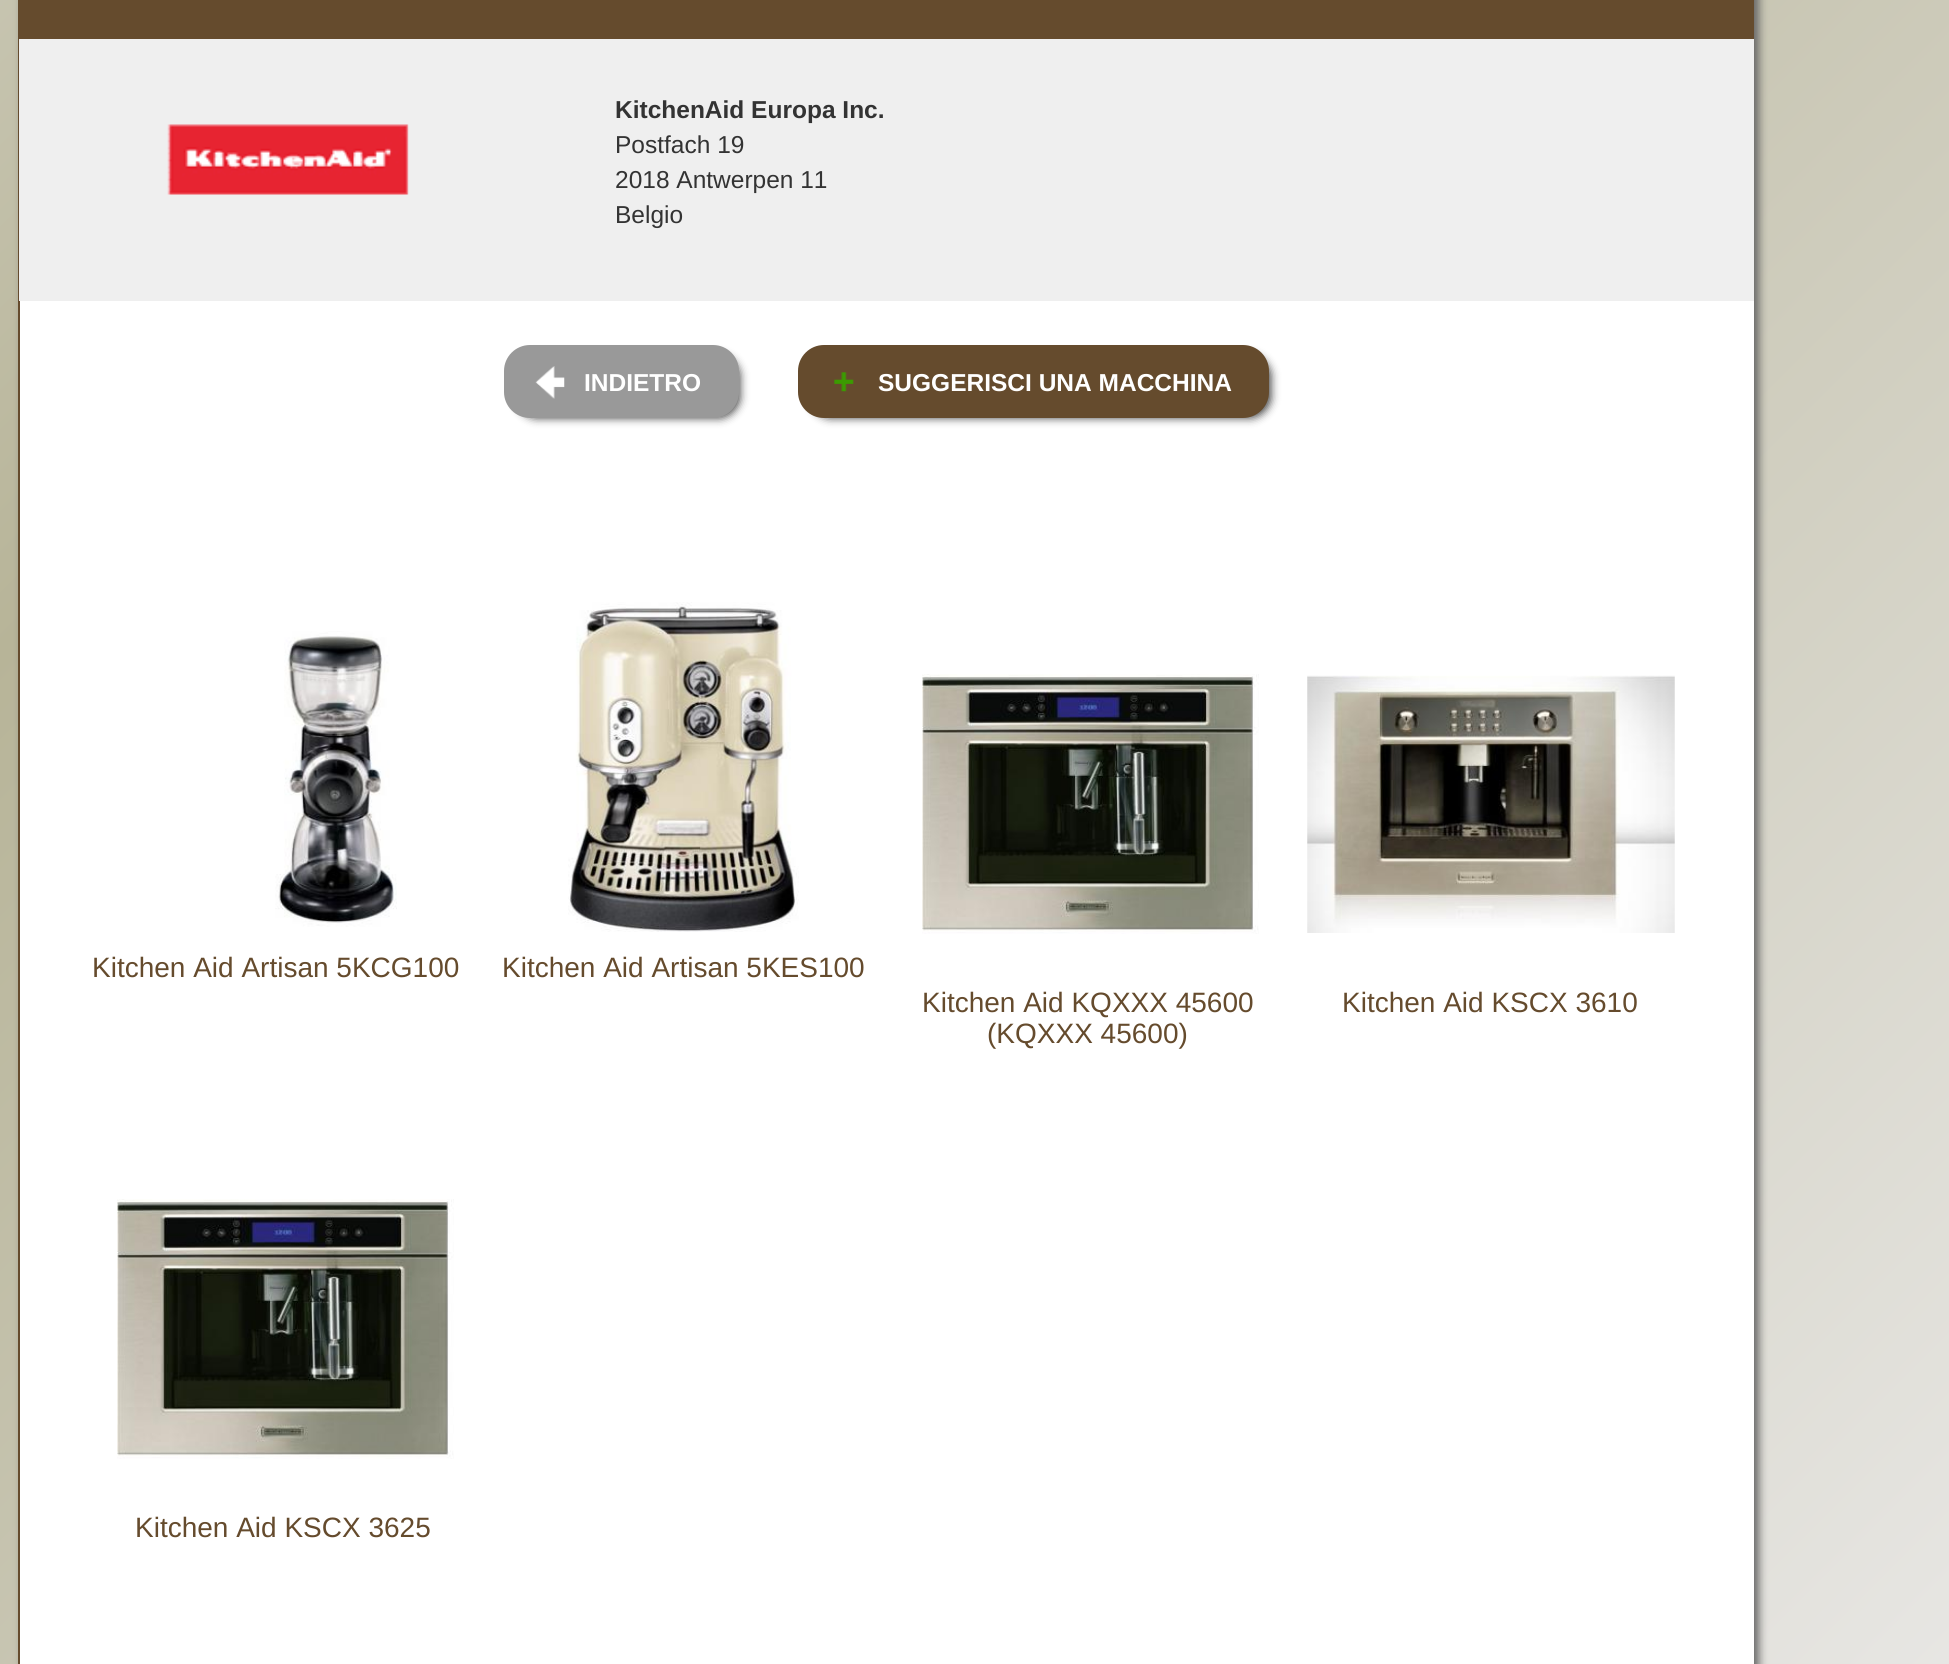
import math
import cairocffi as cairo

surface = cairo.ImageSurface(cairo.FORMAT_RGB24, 1949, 1664)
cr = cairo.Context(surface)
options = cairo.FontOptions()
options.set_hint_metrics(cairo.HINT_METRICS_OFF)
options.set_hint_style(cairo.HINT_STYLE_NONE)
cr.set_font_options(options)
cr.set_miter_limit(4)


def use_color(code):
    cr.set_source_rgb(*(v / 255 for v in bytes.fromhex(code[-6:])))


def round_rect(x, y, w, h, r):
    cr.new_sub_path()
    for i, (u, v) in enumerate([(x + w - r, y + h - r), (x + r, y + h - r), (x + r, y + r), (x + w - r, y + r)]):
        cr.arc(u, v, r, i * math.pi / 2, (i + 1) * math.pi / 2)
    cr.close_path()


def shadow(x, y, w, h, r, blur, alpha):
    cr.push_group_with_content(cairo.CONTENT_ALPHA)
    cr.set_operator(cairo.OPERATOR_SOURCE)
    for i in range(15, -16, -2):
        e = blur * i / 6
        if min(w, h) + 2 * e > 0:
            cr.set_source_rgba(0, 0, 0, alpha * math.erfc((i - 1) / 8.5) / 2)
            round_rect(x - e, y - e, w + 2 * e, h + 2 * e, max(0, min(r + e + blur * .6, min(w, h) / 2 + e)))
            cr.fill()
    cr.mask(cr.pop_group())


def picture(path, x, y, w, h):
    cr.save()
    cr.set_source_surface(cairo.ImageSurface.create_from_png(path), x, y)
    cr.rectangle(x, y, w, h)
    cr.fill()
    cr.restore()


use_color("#ffffff")
cr.paint()
gradient = cairo.LinearGradient(-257, -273, 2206, 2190)
gradient.add_color_stop_rgba(0, 0.827, 0.82, 0.765, 1)
gradient.add_color_stop_rgba(0.24, 0.718, 0.706, 0.596, 1)
gradient.add_color_stop_rgba(0.84, 0.906, 0.902, 0.89, 1)
cr.set_source(gradient)
cr.rectangle(0, 0, 1949, 1664)
cr.fill()
use_color("#666666")
shadow(23, -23, 1736, 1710, 9, 4.5, 1)
use_color("#ffffff")
cr.rectangle(20, 301, 1734, 1363)
cr.fill()
use_color("#654b2d")
cr.rectangle(18, 0, 2, 1664)
cr.fill()
cr.rectangle(20, 0, 1734, 39)
cr.fill()
use_color("#efefef")
cr.rectangle(19, 39, 1735, 262)
cr.fill()
picture("img1.png", 167, 124, 242, 71)
cr.select_font_face("Liberation Sans", cairo.FONT_SLANT_NORMAL, cairo.FONT_WEIGHT_BOLD)
cr.set_font_size(24.5)
use_color("#333333")
cr.move_to(615, 118)
cr.show_text("KitchenAid Europa Inc.")
cr.select_font_face("Liberation Sans")
cr.move_to(615, 153)
cr.show_text("Postfach 19")
cr.move_to(615, 188)
cr.show_text("2018 Antwerpen 11")
cr.move_to(615, 223)
cr.show_text("Belgio")
use_color("#000000")
shadow(516, 355, 224, 63, 21, 4.5, 0.75)
use_color("#999999")
round_rect(504, 345, 235, 73, 26)
cr.fill()
picture("img2.png", 535, 366, 30, 33)
cr.select_font_face("Liberation Sans", cairo.FONT_SLANT_NORMAL, cairo.FONT_WEIGHT_BOLD)
use_color("#ffffff")
cr.move_to(584, 391)
cr.show_text("INDIETRO")
use_color("#000000")
shadow(810, 355, 461, 63, 21, 4.5, 0.75)
use_color("#654b2d")
round_rect(798, 345, 471, 73, 26)
cr.fill()
picture("img3.png", 834, 372, 20, 20)
use_color("#ffffff")
cr.move_to(878, 391)
cr.show_text("SUGGERISCI UNA MACCHINA")
picture("img4.png", 275, 631, 122, 296)
cr.select_font_face("Liberation Sans")
cr.set_font_size(28)
use_color("#654b2d")
cr.move_to(92, 977)
cr.show_text("Kitchen Aid Artisan 5KCG100")
picture("img5.png", 568, 602, 231, 330)
cr.move_to(502, 977)
cr.show_text("Kitchen Aid Artisan 5KES100")
picture("img6.png", 922, 674, 337, 260)
cr.move_to(922, 1012)
cr.show_text("Kitchen Aid KQXXX 45600")
cr.move_to(987, 1043)
cr.show_text("(KQXXX 45600)")
picture("img7.png", 1307, 675, 368, 258)
cr.move_to(1342, 1012)
cr.show_text("Kitchen Aid KSCX 3610")
picture("img8.png", 117, 1199, 337, 260)
cr.move_to(135, 1537)
cr.show_text("Kitchen Aid KSCX 3625")
surface.write_to_png("result.png")
